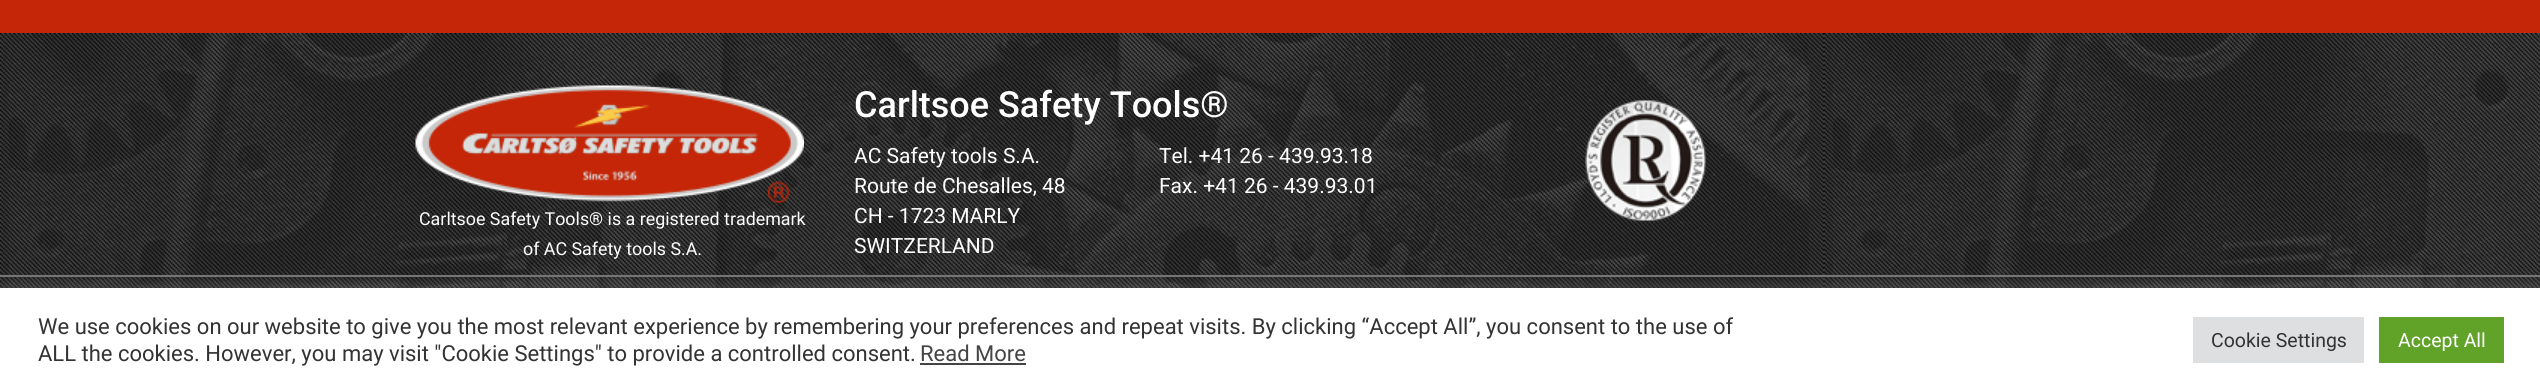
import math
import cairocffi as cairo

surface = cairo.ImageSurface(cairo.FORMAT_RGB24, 2540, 391)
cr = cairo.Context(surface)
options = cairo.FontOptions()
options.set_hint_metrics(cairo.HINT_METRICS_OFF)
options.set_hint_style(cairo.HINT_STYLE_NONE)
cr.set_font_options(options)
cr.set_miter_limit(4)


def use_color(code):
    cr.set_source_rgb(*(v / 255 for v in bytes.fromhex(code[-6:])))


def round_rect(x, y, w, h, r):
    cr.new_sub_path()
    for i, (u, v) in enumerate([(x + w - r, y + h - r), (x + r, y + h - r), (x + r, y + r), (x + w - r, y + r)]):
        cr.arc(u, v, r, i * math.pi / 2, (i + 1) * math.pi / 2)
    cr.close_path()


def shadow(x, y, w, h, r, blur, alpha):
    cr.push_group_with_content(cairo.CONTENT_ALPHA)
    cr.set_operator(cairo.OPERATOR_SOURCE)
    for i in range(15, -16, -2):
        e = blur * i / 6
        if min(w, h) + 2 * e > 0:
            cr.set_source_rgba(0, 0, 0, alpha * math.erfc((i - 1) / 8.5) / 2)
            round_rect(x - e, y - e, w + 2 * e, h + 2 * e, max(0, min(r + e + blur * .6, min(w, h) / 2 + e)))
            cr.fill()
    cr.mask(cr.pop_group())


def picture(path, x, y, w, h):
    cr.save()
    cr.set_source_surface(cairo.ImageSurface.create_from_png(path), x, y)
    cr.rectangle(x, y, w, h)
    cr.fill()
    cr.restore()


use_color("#c42607")
cr.paint()
picture("img1.png", 0, 33, 2540, 255)
cr.select_font_face("Roboto Medium")
cr.set_font_size(36)
use_color("#ffffff")
cr.move_to(854, 117)
cr.show_text("Carltsoe Safety Tools®")
cr.select_font_face("Roboto")
cr.set_font_size(21)
cr.move_to(854, 163)
cr.show_text("AC Safety tools S.A.")
cr.move_to(854, 193)
cr.show_text("Route de Chesalles, 48")
cr.move_to(854, 223)
cr.show_text("CH - 1723 MARLY")
cr.move_to(854, 253)
cr.show_text("SWITZERLAND")
cr.move_to(1159, 163)
cr.show_text("Tel. +41 26 - 439.93.18")
cr.move_to(1159, 193)
cr.show_text("Fax. +41 26 - 439.93.01")
picture("img2.png", 1585, 100, 121, 121)
picture("img3.png", 415, 85, 389, 118)
cr.set_font_size(17.85)
cr.move_to(419, 225)
cr.show_text("Carltsoe Safety Tools® is a registered trademark")
cr.move_to(523, 255)
cr.show_text("of AC Safety tools S.A.")
use_color("#747474")
cr.rectangle(0, 275, 2540, 2)
cr.fill()
use_color("#acabab")
shadow(0, 287, 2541, 103, 0, 7.5, 0.3)
use_color("#ffffff")
cr.rectangle(0, 288, 2540, 103)
cr.fill()
cr.set_font_size(22)
use_color("#333333")
cr.move_to(38, 334)
cr.show_text("We use cookies on our website to give you the most relevant experience by remembering your preferences and repeat visits. By clicking “Accept All”, you consent to the use of")
cr.move_to(38, 361)
cr.show_text("ALL the cookies. However, you may visit \"Cookie Settings\" to provide a controlled consent.")
use_color("#444444")
cr.move_to(920, 361)
cr.show_text("Read More")
cr.rectangle(920, 363, 106, 2)
cr.fill()
use_color("#dedfe0")
cr.rectangle(2193, 317, 171, 46)
cr.fill()
cr.set_font_size(19.5)
use_color("#333333")
cr.move_to(2211, 347)
cr.show_text("Cookie Settings")
use_color("#61a229")
cr.rectangle(2379, 317, 125, 46)
cr.fill()
use_color("#ffffff")
cr.move_to(2398, 347)
cr.show_text("Accept All")
surface.write_to_png("result.png")
